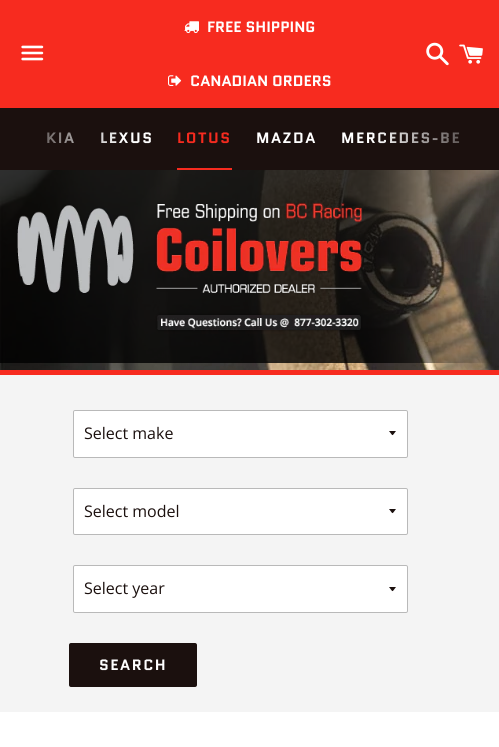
import math
import cairocffi as cairo

surface = cairo.ImageSurface(cairo.FORMAT_RGB24, 499, 747)
cr = cairo.Context(surface)
options = cairo.FontOptions()
options.set_hint_metrics(cairo.HINT_METRICS_OFF)
options.set_hint_style(cairo.HINT_STYLE_NONE)
cr.set_font_options(options)
cr.set_miter_limit(4)


def use_color(code):
    cr.set_source_rgb(*(v / 255 for v in bytes.fromhex(code[-6:])))


def spaced_text(x, y, s, letter, word):
    cr.move_to(x, y)
    for ch in s:
        cr.show_text(ch)
        cr.rel_move_to(letter + word * (ch == ' '), 0)


def round_rect(x, y, w, h, r):
    cr.new_sub_path()
    for i, (u, v) in enumerate([(x + w - r, y + h - r), (x + r, y + h - r), (x + r, y + r), (x + w - r, y + r)]):
        cr.arc(u, v, r, i * math.pi / 2, (i + 1) * math.pi / 2)
    cr.close_path()


def picture(path, x, y, w, h):
    cr.save()
    cr.set_source_surface(cairo.ImageSurface.create_from_png(path), x, y)
    cr.rectangle(x, y, w, h)
    cr.fill()
    cr.restore()


use_color("#ffffff")
cr.paint()
use_color("#f72b1f")
cr.rectangle(0, 0, 499, 108)
cr.fill()
picture("img1.png", 21, 45, 23, 16)
picture("img2.png", 184, 21, 15, 13)
cr.select_font_face("Quantico", cairo.FONT_SLANT_NORMAL, cairo.FONT_WEIGHT_BOLD)
cr.set_font_size(15)
use_color("#ffffff")
cr.move_to(207, 32)
cr.show_text("FREE SHIPPING")
picture("img3.png", 168, 75, 14, 11)
cr.move_to(190, 86)
cr.show_text("CANADIAN ORDERS")
picture("img4.png", 426, 42, 23, 24)
picture("img5.png", 459, 44, 24, 20)
use_color("#1b100e")
cr.rectangle(0, 108, 499, 62)
cr.fill()
use_color("#ffffff")
spaced_text(46, 143, "KIA", 1.5, 0)
spaced_text(100, 143, "LEXUS", 1.5, 0)
use_color("#f72b1f")
spaced_text(177, 143, "LOTUS", 1.5, 0)
cr.rectangle(177, 168, 55, 2)
cr.fill()
use_color("#ffffff")
spaced_text(256, 143, "MAZDA", 1.5, 0)
spaced_text(341, 143, "MERCEDES-BE", 1.5, 0)
gradient = cairo.LinearGradient(125, 134, 0, 134)
gradient.add_color_stop_rgba(0, 0.106, 0.063, 0.055, 0)
gradient.add_color_stop_rgba(1, 0.106, 0.063, 0.055, 1)
cr.set_source(gradient)
cr.rectangle(47, 132, 75, 11)
cr.fill()
gradient = cairo.LinearGradient(374, 134, 499, 134)
gradient.add_color_stop_rgba(0, 0.106, 0.063, 0.055, 0)
gradient.add_color_stop_rgba(1, 0.106, 0.063, 0.055, 1)
cr.set_source(gradient)
cr.rectangle(378, 132, 82, 12)
cr.fill()
picture("img6.png", 0, 170, 499, 200)
use_color("#f72b1f")
cr.rectangle(0, 370, 499, 5)
cr.fill()
picture("img7.png", 0, 170, 490, 193)
use_color("#f4f4f4")
cr.rectangle(0, 375, 499, 337)
cr.fill()
use_color("#ffffff")
round_rect(73, 410, 335, 48, 2)
cr.fill()
use_color("#1b100e")
cr.new_path()
cr.move_to(389, 431)
cr.curve_to(393.5, 436.5, 391.5, 436.5, 396, 431)
cr.close_path()
cr.fill()
round_rect(73.5, 410.5, 334, 47, 1.5)
use_color("#b9b9b9")
cr.set_line_width(1)
cr.stroke()
cr.select_font_face("Open Sans")
cr.set_font_size(16)
use_color("#1b100e")
cr.move_to(84, 439)
cr.show_text("Select make")
use_color("#ffffff")
round_rect(73, 488, 335, 47, 2)
cr.fill()
use_color("#1b100e")
cr.new_path()
cr.move_to(389, 509)
cr.curve_to(393.5, 514.5, 391.5, 514.5, 396, 509)
cr.close_path()
cr.fill()
round_rect(73.5, 488.5, 334, 46, 1.5)
use_color("#b9b9b9")
cr.stroke()
use_color("#1b100e")
cr.move_to(84, 517)
cr.show_text("Select model")
use_color("#ffffff")
round_rect(73, 565, 335, 48, 2)
cr.fill()
use_color("#1b100e")
cr.new_path()
cr.move_to(389, 587)
cr.curve_to(393.5, 592.5, 391.5, 592.5, 396, 587)
cr.close_path()
cr.fill()
round_rect(73.5, 565.5, 334, 47, 1.5)
use_color("#b9b9b9")
cr.stroke()
use_color("#1b100e")
cr.move_to(84, 594)
cr.show_text("Select year")
round_rect(69, 643, 128, 44, 2)
cr.fill()
cr.select_font_face("Quantico", cairo.FONT_SLANT_NORMAL, cairo.FONT_WEIGHT_BOLD)
cr.set_font_size(15)
use_color("#ffffff")
spaced_text(99, 670, "SEARCH", 1.5, 0)
surface.write_to_png("result.png")
